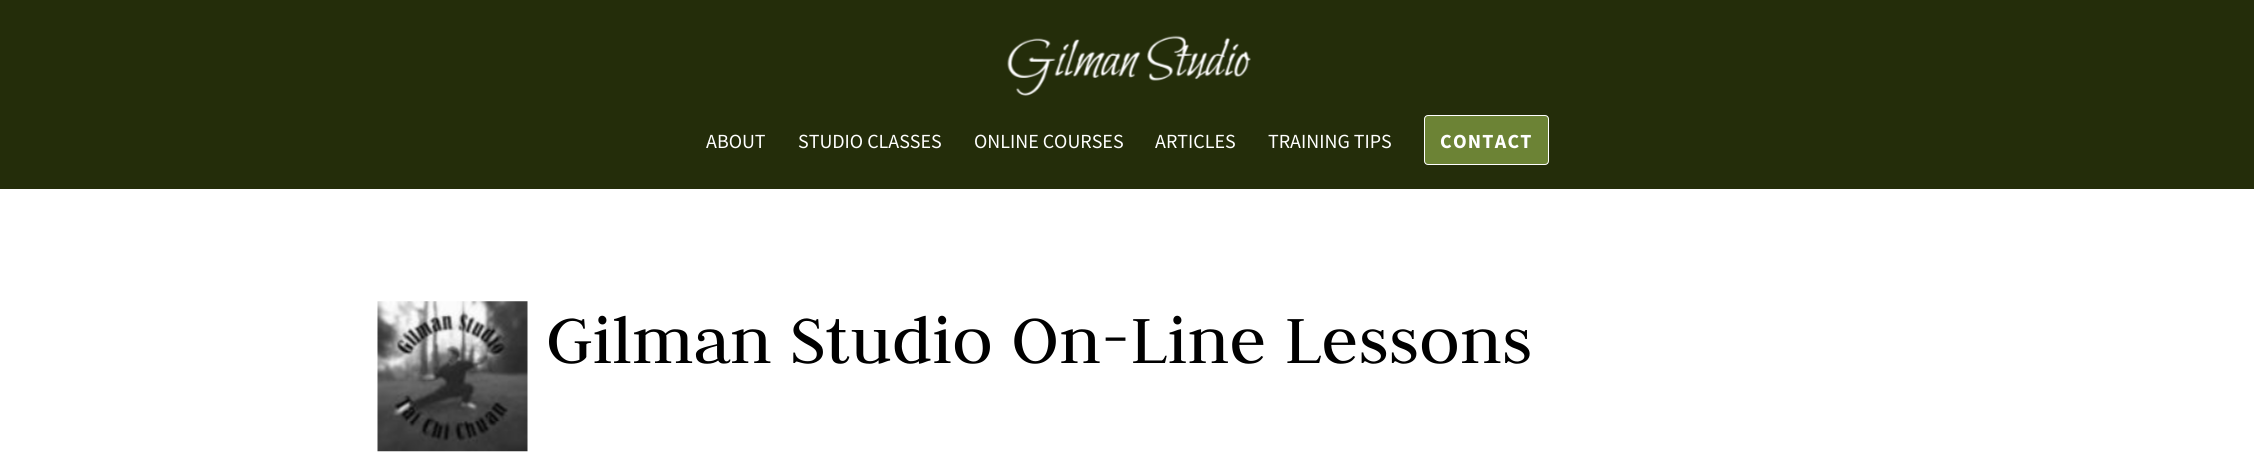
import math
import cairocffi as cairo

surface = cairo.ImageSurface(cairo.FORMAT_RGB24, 2254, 462)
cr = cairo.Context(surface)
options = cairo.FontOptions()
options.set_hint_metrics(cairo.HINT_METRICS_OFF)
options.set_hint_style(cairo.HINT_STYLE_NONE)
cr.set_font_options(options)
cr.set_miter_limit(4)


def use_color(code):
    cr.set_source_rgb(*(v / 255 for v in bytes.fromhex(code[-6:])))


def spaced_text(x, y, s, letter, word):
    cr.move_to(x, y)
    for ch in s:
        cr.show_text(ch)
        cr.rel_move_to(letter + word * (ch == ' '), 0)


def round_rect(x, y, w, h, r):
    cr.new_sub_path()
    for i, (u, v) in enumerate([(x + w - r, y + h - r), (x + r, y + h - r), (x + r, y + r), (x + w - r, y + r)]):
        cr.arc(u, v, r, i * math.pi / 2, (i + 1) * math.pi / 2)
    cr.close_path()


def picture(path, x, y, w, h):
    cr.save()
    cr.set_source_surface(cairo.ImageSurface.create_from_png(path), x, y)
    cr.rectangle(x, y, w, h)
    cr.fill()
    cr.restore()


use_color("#ffffff")
cr.paint()
use_color("#242d0a")
cr.rectangle(0, 0, 2254, 189)
cr.fill()
picture("img1.png", 1007, 35, 244, 61)
cr.select_font_face("Source Sans Pro")
cr.set_font_size(20)
use_color("#ffffff")
cr.move_to(706, 148)
cr.show_text("ABOUT")
cr.move_to(798, 148)
cr.show_text("STUDIO CLASSES")
cr.move_to(974, 148)
cr.show_text("ONLINE COURSES")
cr.move_to(1155, 148)
cr.show_text("ARTICLES")
cr.move_to(1268, 148)
cr.show_text("TRAINING TIPS")
use_color("#6c8335")
round_rect(1424.5, 115.5, 124, 49, 3.5)
cr.fill_preserve()
use_color("#ffffff")
cr.set_line_width(1)
cr.stroke()
cr.select_font_face("Source Sans Pro", cairo.FONT_SLANT_NORMAL, cairo.FONT_WEIGHT_BOLD)
spaced_text(1440, 148, "CONTACT", 1.25, 0)
picture("img2.png", 377, 301, 151, 151)
cr.select_font_face("Judson")
cr.set_font_size(75)
use_color("#000000")
cr.move_to(546, 363)
cr.show_text("Gilman Studio On-Line Lessons")
surface.write_to_png("result.png")
